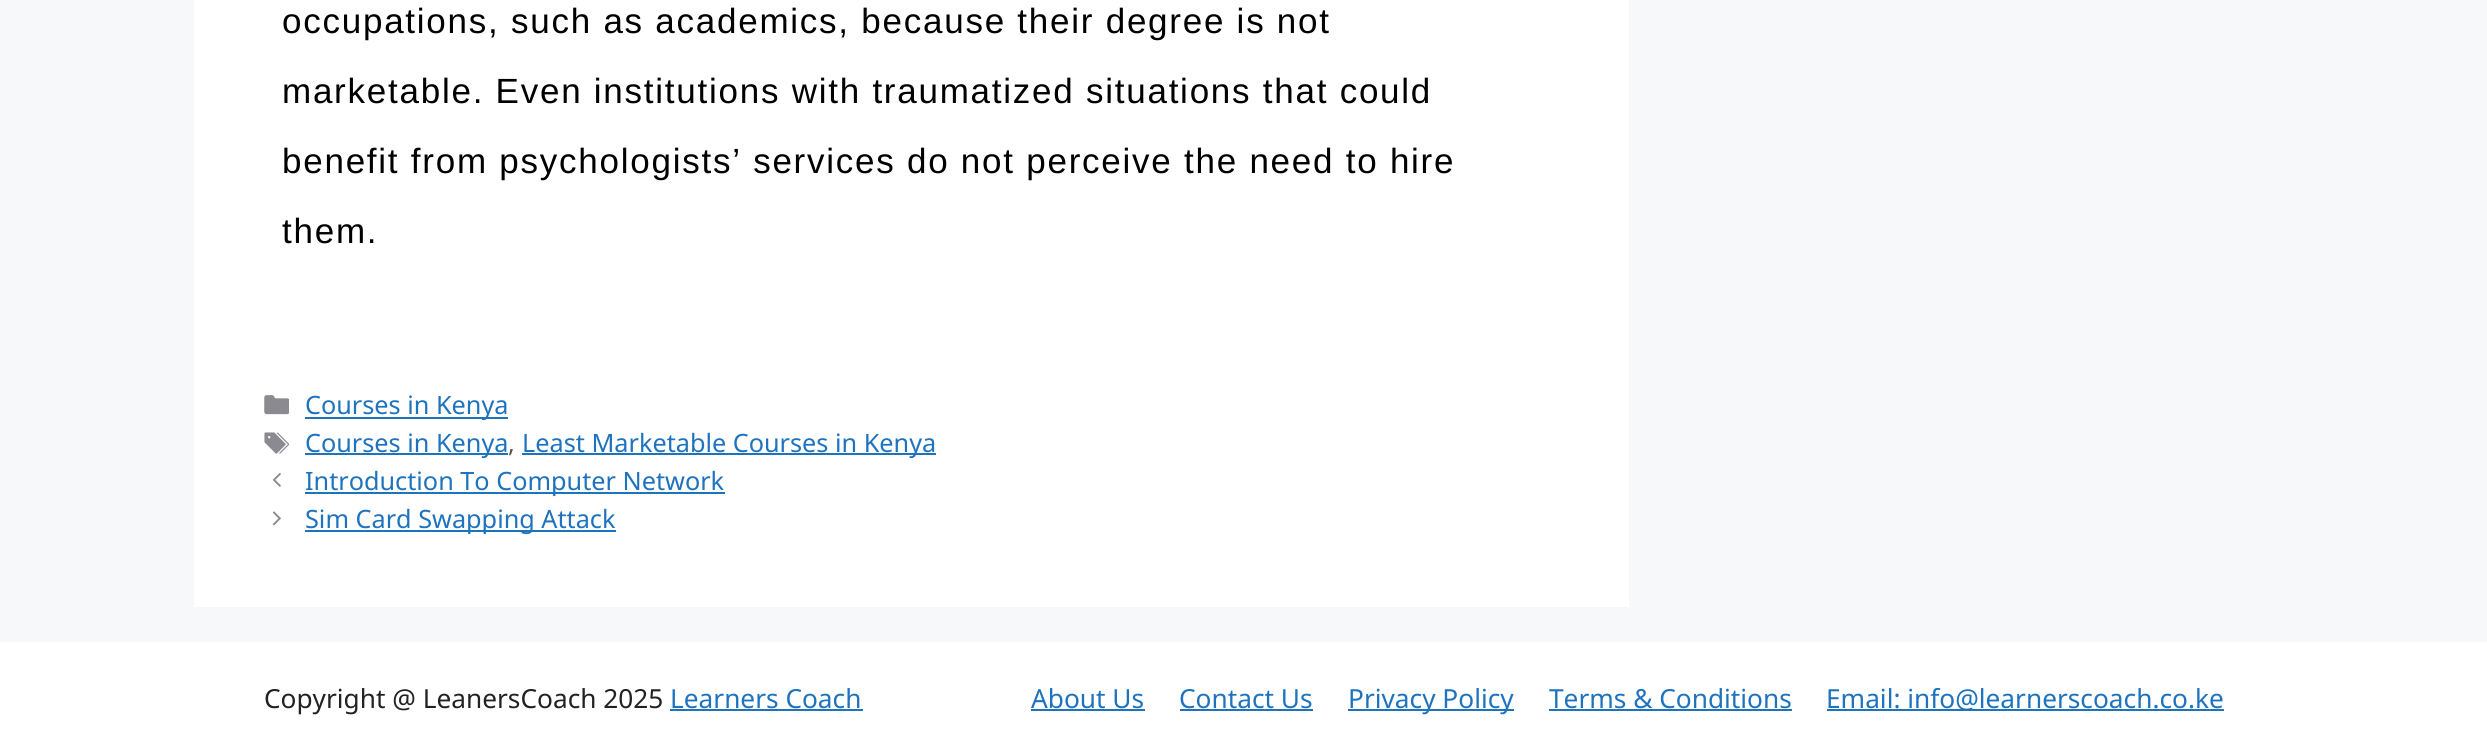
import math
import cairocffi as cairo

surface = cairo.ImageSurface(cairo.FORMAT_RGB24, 2487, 751)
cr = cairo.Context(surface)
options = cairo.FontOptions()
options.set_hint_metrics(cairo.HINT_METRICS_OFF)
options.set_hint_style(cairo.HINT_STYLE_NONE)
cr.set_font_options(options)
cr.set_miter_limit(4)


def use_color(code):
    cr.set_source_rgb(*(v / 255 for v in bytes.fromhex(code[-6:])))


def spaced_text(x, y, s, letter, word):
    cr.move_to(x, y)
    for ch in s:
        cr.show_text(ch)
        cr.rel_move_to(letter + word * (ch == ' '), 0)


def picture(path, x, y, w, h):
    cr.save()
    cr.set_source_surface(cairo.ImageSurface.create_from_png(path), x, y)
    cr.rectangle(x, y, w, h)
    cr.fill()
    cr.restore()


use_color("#f7f8f9")
cr.paint()
use_color("#ffffff")
cr.rectangle(194, 0, 1435, 607)
cr.fill()
cr.select_font_face("Liberation Sans")
cr.set_font_size(35)
use_color("#000000")
spaced_text(282, 33, "occupations, such as academics, because their degree is not", 1.75, 0)
spaced_text(282, 103, "marketable. Even institutions with traumatized situations that could", 1.75, 0)
spaced_text(282, 173, "benefit from psychologists’ services do not perceive the need to hire", 1.75, 0)
spaced_text(282, 243, "them.", 1.75, 0)
picture("img1.png", 264, 395, 25, 20)
use_color("#1e73be")
cr.rectangle(305, 417, 203, 2)
cr.fill()
cr.select_font_face("Noto Sans")
cr.set_font_size(25.25)
cr.move_to(305, 414)
cr.show_text("Courses in Kenya")
picture("img2.png", 264, 432, 25, 22)
cr.rectangle(305, 453, 203, 2)
cr.fill()
cr.move_to(305, 452)
cr.show_text("Courses in Kenya")
use_color("#575760")
cr.move_to(508, 452)
cr.show_text(",")
use_color("#1e73be")
cr.rectangle(522, 453, 414, 2)
cr.fill()
cr.move_to(522, 452)
cr.show_text("Least Marketable Courses in Kenya")
picture("img3.png", 272, 473, 9, 14)
cr.rectangle(305, 492, 420, 2)
cr.fill()
cr.move_to(305, 490)
cr.show_text("Introduction To Computer Network")
picture("img4.png", 272, 511, 9, 15)
cr.rectangle(305, 530, 311, 2)
cr.fill()
cr.move_to(305, 528)
cr.show_text("Sim Card Swapping Attack")
use_color("#ffffff")
cr.rectangle(0, 642, 2487, 109)
cr.fill()
cr.set_font_size(26.25)
use_color("#222222")
cr.move_to(264, 708)
cr.show_text("Copyright @ LeanersCoach 2025")
use_color("#1e73be")
cr.move_to(670, 708)
cr.show_text("Learners Coach")
cr.rectangle(670, 709, 193, 2)
cr.fill()
cr.move_to(1031, 708)
cr.show_text("About Us")
cr.rectangle(1031, 709, 114, 2)
cr.fill()
cr.move_to(1179, 708)
cr.show_text("Contact Us")
cr.rectangle(1180, 709, 133, 2)
cr.fill()
cr.rectangle(1348, 709, 166, 2)
cr.fill()
cr.move_to(1348, 708)
cr.show_text("Privacy Policy")
cr.move_to(1549, 708)
cr.show_text("Terms & Conditions")
cr.rectangle(1549, 709, 243, 2)
cr.fill()
cr.rectangle(1827, 709, 397, 2)
cr.fill()
cr.move_to(1826, 708)
cr.show_text("Email: info@learnerscoach.co.ke")
surface.write_to_png("result.png")
